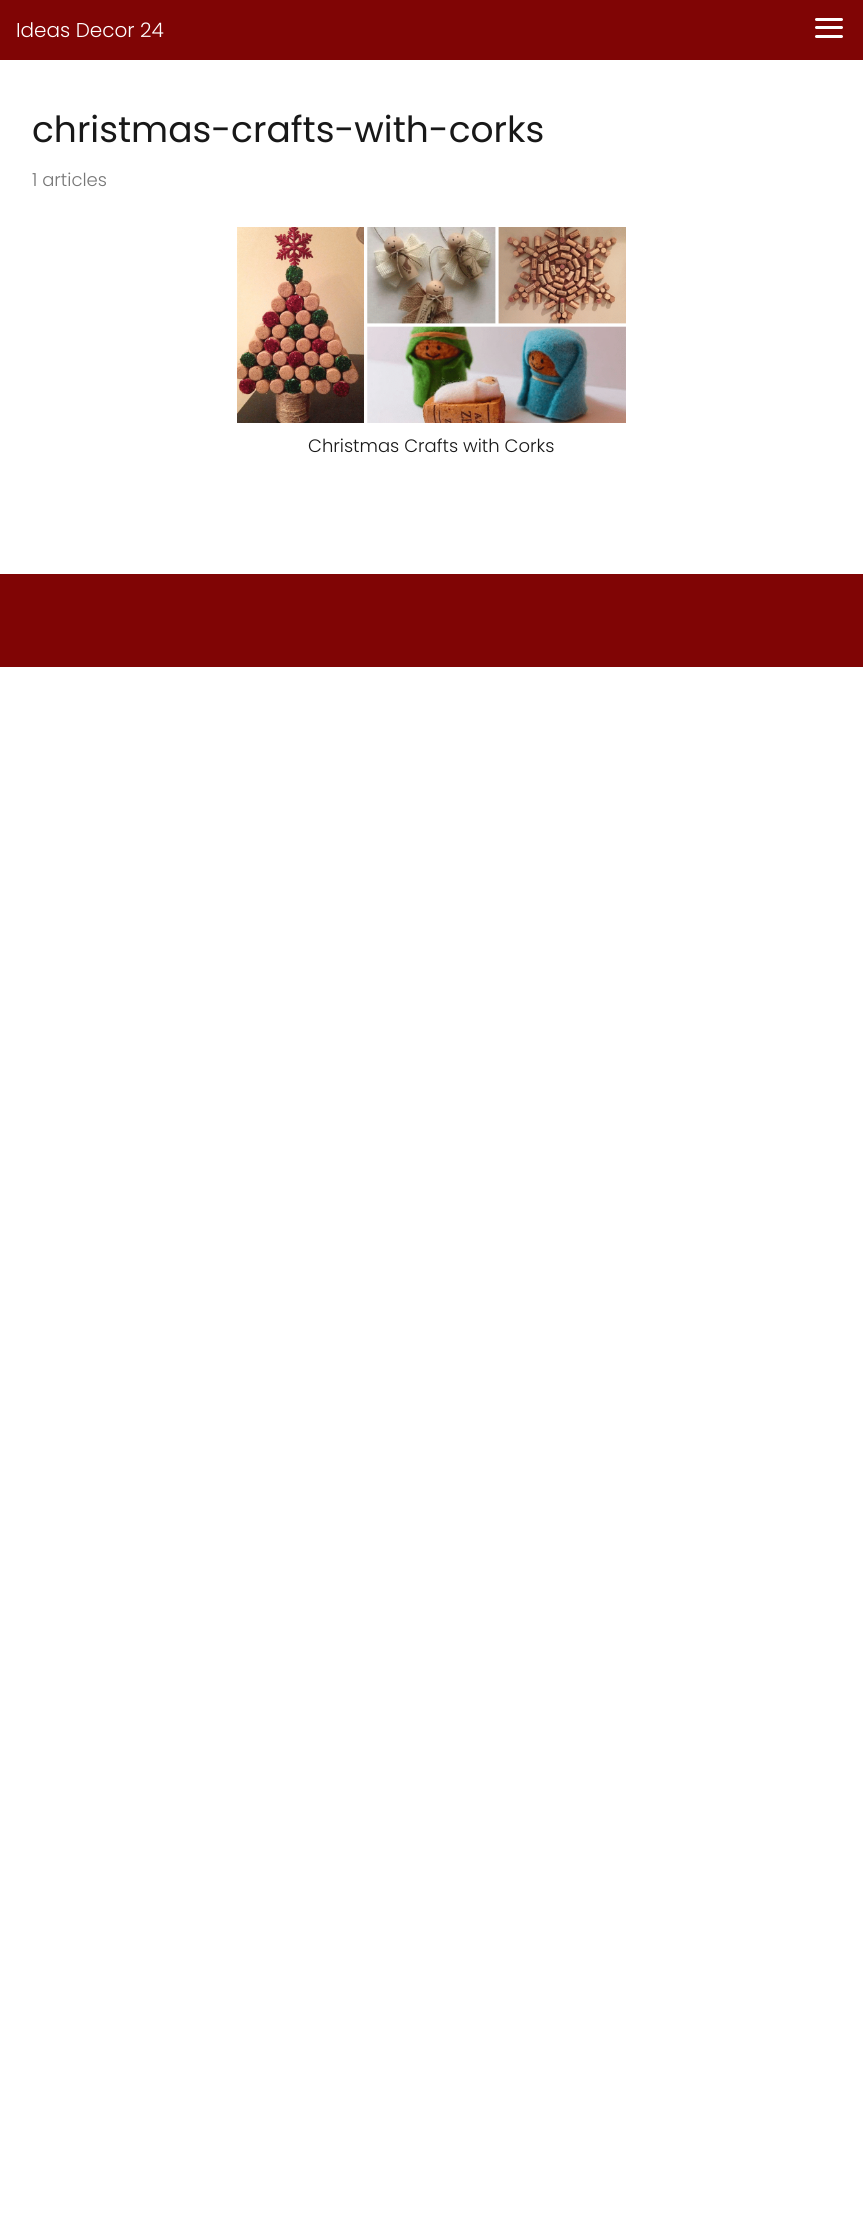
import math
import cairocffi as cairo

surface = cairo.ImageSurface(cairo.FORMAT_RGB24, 863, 2219)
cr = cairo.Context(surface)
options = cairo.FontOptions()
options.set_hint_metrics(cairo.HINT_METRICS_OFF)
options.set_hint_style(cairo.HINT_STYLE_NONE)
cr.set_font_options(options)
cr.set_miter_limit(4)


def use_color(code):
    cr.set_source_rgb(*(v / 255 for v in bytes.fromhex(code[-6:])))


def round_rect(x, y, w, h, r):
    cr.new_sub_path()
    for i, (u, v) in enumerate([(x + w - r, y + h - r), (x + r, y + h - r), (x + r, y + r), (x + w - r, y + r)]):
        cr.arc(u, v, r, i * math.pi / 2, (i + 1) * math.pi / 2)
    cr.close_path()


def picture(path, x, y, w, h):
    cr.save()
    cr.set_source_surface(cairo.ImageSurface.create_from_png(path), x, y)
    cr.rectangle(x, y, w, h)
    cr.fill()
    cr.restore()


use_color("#ffffff")
cr.paint()
use_color("#800505")
cr.rectangle(0, 0, 863, 60)
cr.fill()
cr.select_font_face("Poppins Light")
cr.set_font_size(20)
use_color("#ffffff")
cr.move_to(16, 37)
cr.show_text("Ideas Decor 24")
round_rect(815, 18, 28, 3, 1.5)
cr.fill()
round_rect(815, 26, 28, 3, 1.5)
cr.fill()
round_rect(815, 35, 28, 3, 1.5)
cr.fill()
cr.select_font_face("Poppins")
cr.set_font_size(36)
use_color("#181818")
cr.move_to(32, 142)
cr.show_text("christmas-crafts-with-corks")
cr.select_font_face("Poppins Light")
cr.set_font_size(18)
use_color("#767676")
cr.move_to(32, 186)
cr.show_text("1 articles")
picture("img1.png", 237, 227, 389, 196)
use_color("#181818")
cr.move_to(308, 452)
cr.show_text("Christmas Crafts with Corks")
use_color("#800505")
cr.rectangle(0, 574, 863, 93)
cr.fill()
surface.write_to_png("result.png")
